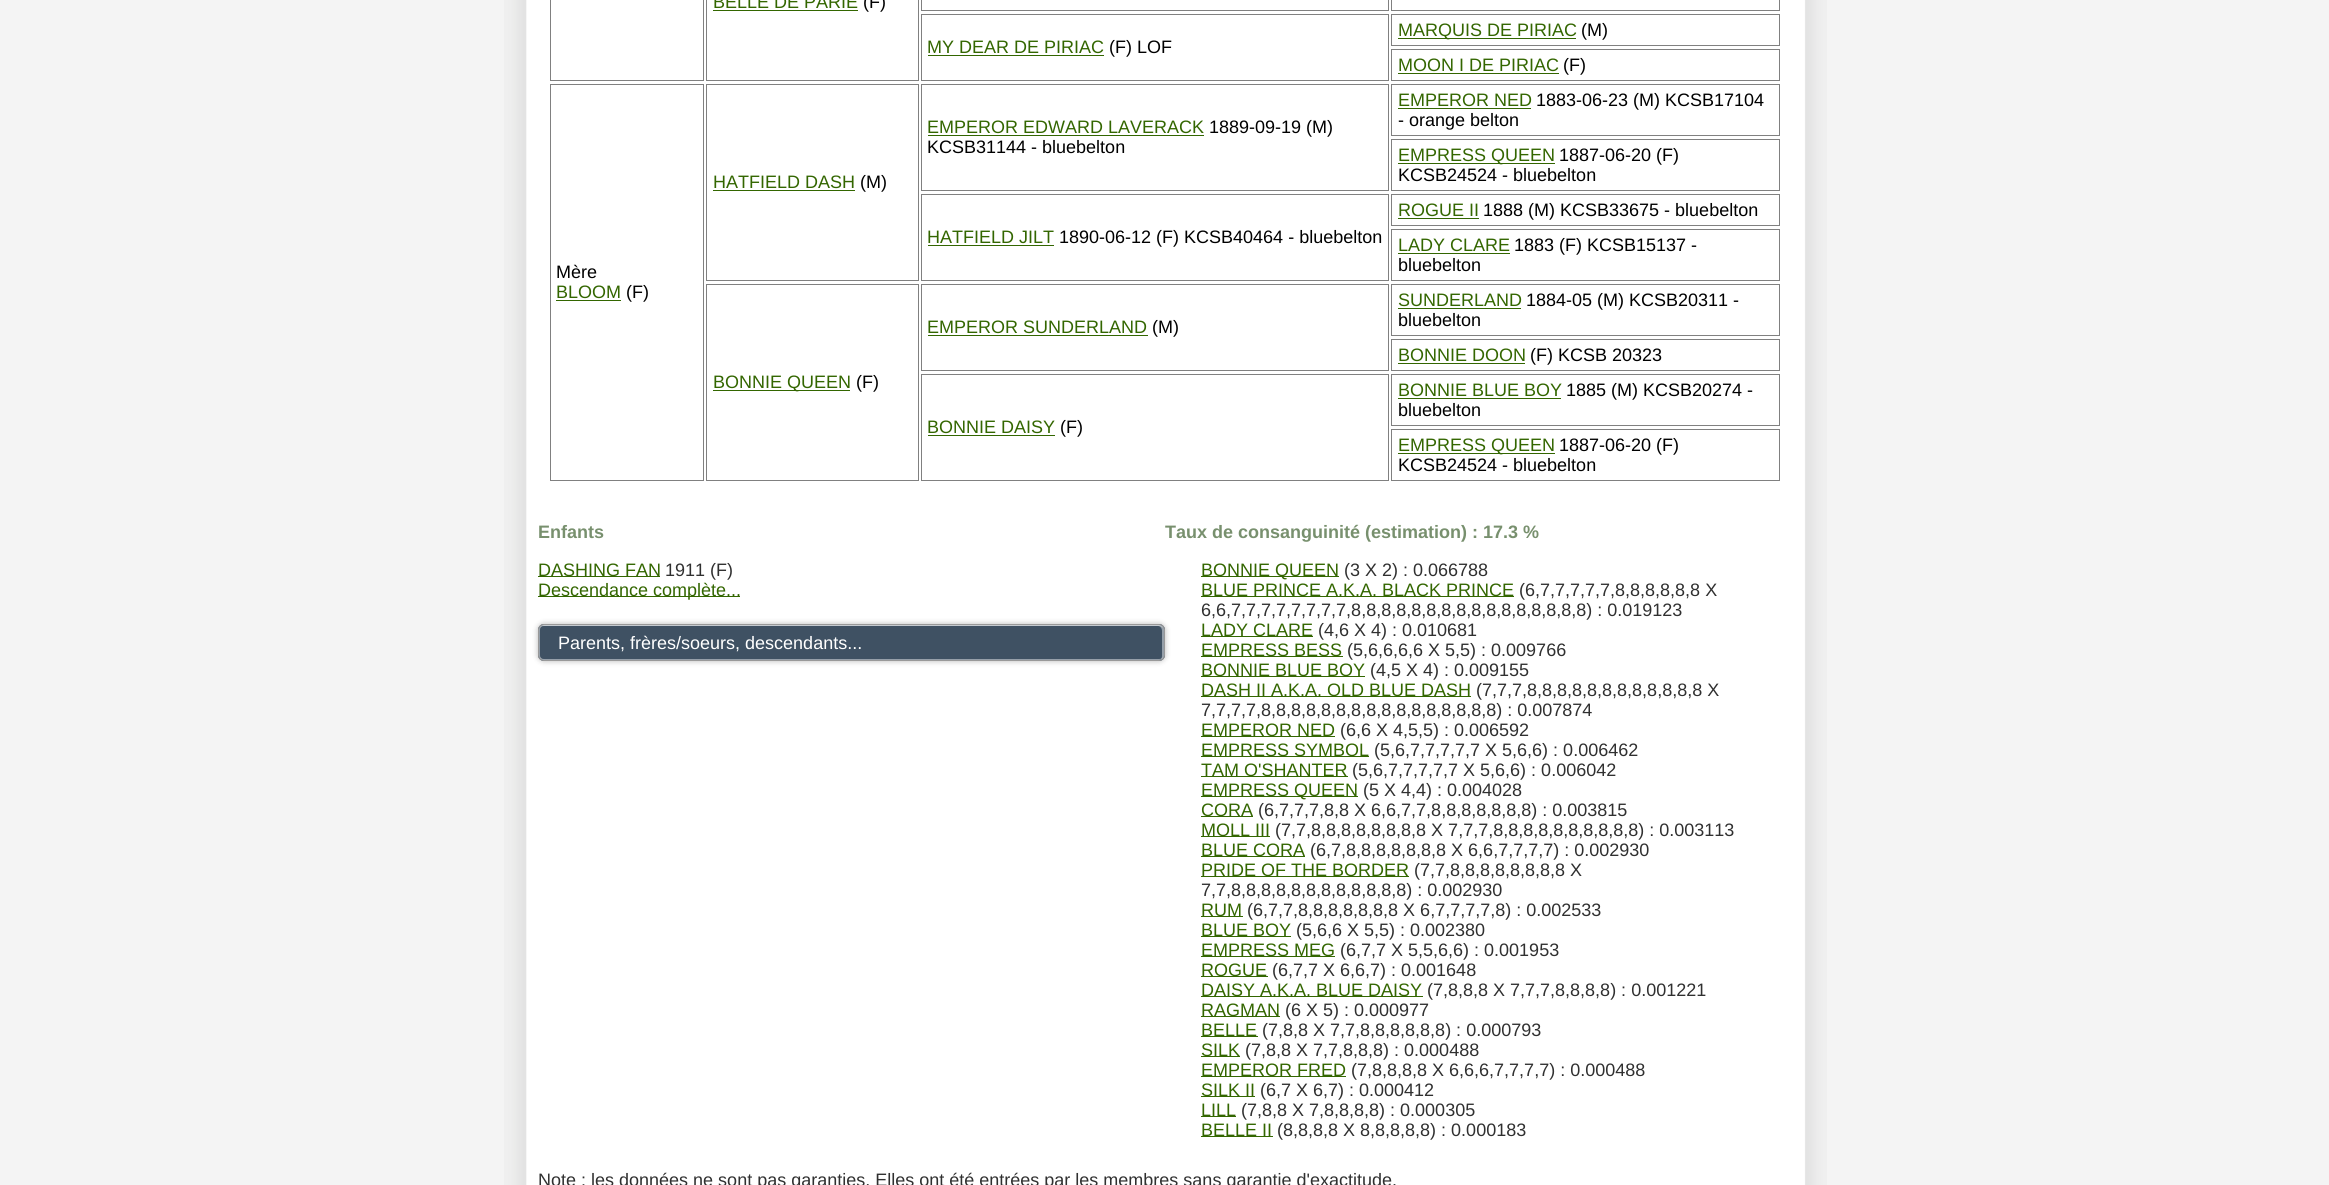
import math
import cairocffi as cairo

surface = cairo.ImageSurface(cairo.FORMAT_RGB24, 2329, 1185)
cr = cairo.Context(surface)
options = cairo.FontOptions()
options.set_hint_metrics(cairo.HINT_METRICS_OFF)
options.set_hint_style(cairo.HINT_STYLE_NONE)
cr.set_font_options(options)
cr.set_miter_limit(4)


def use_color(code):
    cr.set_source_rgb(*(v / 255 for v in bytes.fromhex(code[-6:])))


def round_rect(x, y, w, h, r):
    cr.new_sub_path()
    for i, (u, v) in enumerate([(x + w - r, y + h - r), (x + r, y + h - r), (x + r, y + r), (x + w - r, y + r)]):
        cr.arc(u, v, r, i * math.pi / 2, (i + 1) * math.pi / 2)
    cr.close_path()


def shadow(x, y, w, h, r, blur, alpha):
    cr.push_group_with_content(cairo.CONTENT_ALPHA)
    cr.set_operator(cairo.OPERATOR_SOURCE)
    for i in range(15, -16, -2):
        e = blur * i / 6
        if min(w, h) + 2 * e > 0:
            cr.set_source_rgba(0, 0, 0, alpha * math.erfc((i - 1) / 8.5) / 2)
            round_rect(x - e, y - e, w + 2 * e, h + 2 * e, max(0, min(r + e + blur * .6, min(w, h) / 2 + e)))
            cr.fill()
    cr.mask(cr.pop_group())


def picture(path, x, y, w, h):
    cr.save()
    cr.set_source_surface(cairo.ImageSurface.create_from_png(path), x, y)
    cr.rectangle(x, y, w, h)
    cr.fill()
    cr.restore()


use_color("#f4f4f4")
cr.paint()
picture("img1.png", 504, 0, 1323, 1185)
cr.rectangle(550.5, -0.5, 153, 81)
use_color("#808080")
cr.set_line_width(1)
cr.stroke()
cr.rectangle(706.5, -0.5, 212, 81)
cr.stroke()
cr.select_font_face("Liberation Sans")
cr.set_font_size(18)
use_color("#336600")
cr.move_to(713, 8)
cr.show_text("BELLE DE PARIE")
cr.rectangle(713, 10, 145, 1)
cr.fill()
use_color("#000000")
cr.move_to(863, 8)
cr.show_text("(F)")
cr.rectangle(921.5, -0.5, 467, 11)
use_color("#808080")
cr.stroke()
cr.rectangle(1391.5, -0.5, 388, 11)
cr.stroke()
cr.rectangle(1391.5, 14.5, 388, 31)
cr.stroke()
use_color("#336600")
cr.rectangle(1398, 38, 178, 1)
cr.fill()
cr.move_to(1398, 36)
cr.show_text("MARQUIS DE PIRIAC")
use_color("#000000")
cr.move_to(1581, 36)
cr.show_text("(M)")
cr.rectangle(921.5, 14.5, 467, 66)
use_color("#808080")
cr.stroke()
use_color("#336600")
cr.move_to(927, 53)
cr.show_text("MY DEAR DE PIRIAC")
cr.rectangle(928, 55, 176, 1)
cr.fill()
use_color("#000000")
cr.move_to(1109, 53)
cr.show_text("(F) LOF")
cr.rectangle(1391.5, 49.5, 388, 31)
use_color("#808080")
cr.stroke()
use_color("#336600")
cr.move_to(1398, 71)
cr.show_text("MOON I DE PIRIAC")
cr.rectangle(1398, 73, 161, 1)
cr.fill()
use_color("#000000")
cr.move_to(1563, 71)
cr.show_text("(F)")
cr.rectangle(1391.5, 84.5, 388, 51)
use_color("#808080")
cr.stroke()
use_color("#336600")
cr.move_to(1398, 106)
cr.show_text("EMPEROR NED")
cr.rectangle(1398, 108, 133, 1)
cr.fill()
use_color("#000000")
cr.move_to(1536, 106)
cr.show_text("1883-06-23 (M) KCSB17104")
cr.move_to(1398, 126)
cr.show_text("- orange belton")
cr.rectangle(921.5, 84.5, 467, 106)
use_color("#808080")
cr.stroke()
use_color("#336600")
cr.move_to(927, 133)
cr.show_text("EMPEROR EDWARD LAVERACK")
cr.rectangle(928, 135, 276, 1)
cr.fill()
use_color("#000000")
cr.move_to(1209, 133)
cr.show_text("1889-09-19 (M)")
cr.move_to(927, 153)
cr.show_text("KCSB31144 - bluebelton")
cr.rectangle(706.5, 84.5, 212, 196)
use_color("#808080")
cr.stroke()
use_color("#336600")
cr.move_to(713, 188)
cr.show_text("HATFIELD DASH")
cr.rectangle(713, 190, 142, 1)
cr.fill()
use_color("#000000")
cr.move_to(860, 188)
cr.show_text("(M)")
cr.rectangle(550.5, 84.5, 153, 396)
use_color("#808080")
cr.stroke()
use_color("#000000")
cr.move_to(556, 278)
cr.show_text("Mère")
use_color("#336600")
cr.move_to(556, 298)
cr.show_text("BLOOM")
cr.rectangle(556, 300, 65, 1)
cr.fill()
use_color("#000000")
cr.move_to(626, 298)
cr.show_text("(F)")
cr.rectangle(1391.5, 139.5, 388, 51)
use_color("#808080")
cr.stroke()
use_color("#336600")
cr.rectangle(1398, 163, 157, 1)
cr.fill()
cr.move_to(1398, 161)
cr.show_text("EMPRESS QUEEN")
use_color("#000000")
cr.move_to(1559, 161)
cr.show_text("1887-06-20 (F)")
cr.move_to(1398, 181)
cr.show_text("KCSB24524 - bluebelton")
cr.rectangle(1391.5, 194.5, 388, 31)
use_color("#808080")
cr.stroke()
use_color("#336600")
cr.move_to(1398, 216)
cr.show_text("ROGUE II")
cr.rectangle(1398, 218, 81, 1)
cr.fill()
use_color("#000000")
cr.move_to(1483, 216)
cr.show_text("1888 (M) KCSB33675 - bluebelton")
cr.rectangle(921.5, 194.5, 467, 86)
use_color("#808080")
cr.stroke()
use_color("#336600")
cr.move_to(927, 243)
cr.show_text("HATFIELD JILT")
cr.rectangle(928, 245, 126, 1)
cr.fill()
use_color("#000000")
cr.move_to(1059, 243)
cr.show_text("1890-06-12 (F) KCSB40464 - bluebelton")
cr.rectangle(1391.5, 229.5, 388, 51)
use_color("#808080")
cr.stroke()
use_color("#336600")
cr.move_to(1398, 251)
cr.show_text("LADY CLARE")
cr.rectangle(1398, 253, 112, 1)
cr.fill()
use_color("#000000")
cr.move_to(1514, 251)
cr.show_text("1883 (F) KCSB15137 -")
cr.move_to(1398, 271)
cr.show_text("bluebelton")
cr.rectangle(921.5, 284.5, 467, 86)
use_color("#808080")
cr.stroke()
use_color("#336600")
cr.move_to(927, 333)
cr.show_text("EMPEROR SUNDERLAND")
cr.rectangle(928, 335, 220, 1)
cr.fill()
use_color("#000000")
cr.move_to(1152, 333)
cr.show_text("(M)")
cr.rectangle(1391.5, 284.5, 388, 51)
use_color("#808080")
cr.stroke()
use_color("#336600")
cr.move_to(1398, 306)
cr.show_text("SUNDERLAND")
cr.rectangle(1398, 308, 123, 1)
cr.fill()
use_color("#000000")
cr.move_to(1526, 306)
cr.show_text("1884-05 (M) KCSB20311 -")
cr.move_to(1398, 326)
cr.show_text("bluebelton")
cr.rectangle(706.5, 284.5, 212, 196)
use_color("#808080")
cr.stroke()
use_color("#336600")
cr.rectangle(713, 390, 137, 1)
cr.fill()
cr.move_to(713, 388)
cr.show_text("BONNIE QUEEN")
use_color("#000000")
cr.move_to(856, 388)
cr.show_text("(F)")
cr.rectangle(1391.5, 339.5, 388, 31)
use_color("#808080")
cr.stroke()
use_color("#336600")
cr.move_to(1398, 361)
cr.show_text("BONNIE DOON")
cr.rectangle(1398, 363, 127, 1)
cr.fill()
use_color("#000000")
cr.move_to(1530, 361)
cr.show_text("(F) KCSB 20323")
cr.rectangle(1391.5, 374.5, 388, 51)
use_color("#808080")
cr.stroke()
use_color("#336600")
cr.move_to(1398, 396)
cr.show_text("BONNIE BLUE BOY")
cr.rectangle(1398, 398, 163, 1)
cr.fill()
use_color("#000000")
cr.move_to(1566, 396)
cr.show_text("1885 (M) KCSB20274 -")
cr.move_to(1398, 416)
cr.show_text("bluebelton")
cr.rectangle(921.5, 374.5, 467, 106)
use_color("#808080")
cr.stroke()
use_color("#336600")
cr.move_to(927, 433)
cr.show_text("BONNIE DAISY")
cr.rectangle(928, 435, 127, 1)
cr.fill()
use_color("#000000")
cr.move_to(1060, 433)
cr.show_text("(F)")
cr.rectangle(1391.5, 429.5, 388, 51)
use_color("#808080")
cr.stroke()
use_color("#336600")
cr.rectangle(1398, 453, 157, 1)
cr.fill()
cr.move_to(1398, 451)
cr.show_text("EMPRESS QUEEN")
use_color("#000000")
cr.move_to(1559, 451)
cr.show_text("1887-06-20 (F)")
cr.move_to(1398, 471)
cr.show_text("KCSB24524 - bluebelton")
cr.select_font_face("Liberation Sans", cairo.FONT_SLANT_NORMAL, cairo.FONT_WEIGHT_BOLD)
use_color("#78906e")
cr.move_to(538, 538)
cr.show_text("Enfants")
use_color("#336600")
cr.rectangle(538, 576, 122, 1)
cr.fill()
cr.select_font_face("Liberation Sans")
cr.move_to(538, 576)
cr.show_text("DASHING FAN")
use_color("#303030")
cr.move_to(665, 576)
cr.show_text("1911 (F)")
use_color("#336600")
cr.rectangle(538, 596, 202, 1)
cr.fill()
cr.move_to(538, 596)
cr.show_text("Descendance complète...")
use_color("#000000")
shadow(538, 624, 627, 37, 6, 3, 0.28)
use_color("#3f5163")
round_rect(538, 624, 627, 37, 6)
cr.fill()
use_color("#959fa9")
cr.new_path()
cr.move_to(542, 626)
cr.line_to(1158, 626)
cr.curve_to(1160, 626, 1162, 628, 1162, 631)
cr.line_to(1162, 656)
cr.curve_to(1162, 658, 1161, 659, 1161, 660)
cr.curve_to(1163, 659, 1164, 657, 1164, 655)
cr.line_to(1164, 630)
cr.curve_to(1164, 627, 1162, 625, 1159, 625)
cr.line_to(544, 625)
cr.curve_to(543, 625, 542, 625, 541, 626)
cr.close_path()
cr.fill()
cr.new_path()
cr.move_to(544, 625)
cr.curve_to(541, 625, 539, 627, 539, 630)
cr.line_to(539, 655)
cr.curve_to(539, 658, 541, 660, 544, 660)
cr.line_to(545, 660)
cr.curve_to(542, 660, 540, 658, 540, 655)
cr.line_to(540, 630)
cr.curve_to(540, 627, 542, 625, 545, 625)
cr.close_path()
cr.fill()
cr.set_source_rgba(1, 1, 1, 0.45)
cr.new_path()
cr.move_to(539, 654)
cr.line_to(539, 655)
cr.curve_to(539, 658, 541, 660, 544, 660)
cr.line_to(1159, 660)
cr.curve_to(1162, 660, 1164, 658, 1164, 655)
cr.line_to(1164, 654)
cr.curve_to(1164, 657, 1162, 659, 1159, 659)
cr.line_to(544, 659)
cr.curve_to(541, 659, 539, 657, 539, 654)
cr.close_path()
cr.fill()
cr.new_path()
cr.move_to(544, 626)
cr.line_to(1159, 626)
cr.curve_to(1162, 626, 1164, 628, 1164, 631)
cr.line_to(1164, 630)
cr.curve_to(1164, 627, 1162, 625, 1159, 625)
cr.line_to(544, 625)
cr.curve_to(541, 625, 539, 627, 539, 630)
cr.line_to(539, 631)
cr.curve_to(539, 628, 541, 626, 544, 626)
cr.close_path()
cr.fill()
round_rect(538.5, 624.5, 626, 36, 5.5)
use_color("#999999")
cr.stroke()
use_color("#ffffff")
cr.move_to(558, 649)
cr.show_text("Parents, frères/soeurs, descendants...")
cr.select_font_face("Liberation Sans", cairo.FONT_SLANT_NORMAL, cairo.FONT_WEIGHT_BOLD)
use_color("#78906e")
cr.move_to(1165, 538)
cr.show_text("Taux de consanguinité (estimation) : 17.3 %")
use_color("#336600")
cr.rectangle(1201, 576, 138, 1)
cr.fill()
cr.select_font_face("Liberation Sans")
cr.move_to(1201, 576)
cr.show_text("BONNIE QUEEN")
use_color("#303030")
cr.move_to(1344, 576)
cr.show_text("(3 X 2) : 0.066788")
use_color("#336600")
cr.rectangle(1201, 596, 313, 1)
cr.fill()
cr.move_to(1201, 596)
cr.show_text("BLUE PRINCE A.K.A. BLACK PRINCE")
use_color("#303030")
cr.move_to(1519, 596)
cr.show_text("(6,7,7,7,7,7,8,8,8,8,8,8 X")
cr.move_to(1201, 616)
cr.show_text("6,6,7,7,7,7,7,7,7,7,8,8,8,8,8,8,8,8,8,8,8,8,8,8,8,8) : 0.019123")
use_color("#336600")
cr.rectangle(1201, 636, 112, 1)
cr.fill()
cr.move_to(1201, 636)
cr.show_text("LADY CLARE")
use_color("#303030")
cr.move_to(1318, 636)
cr.show_text("(4,6 X 4) : 0.010681")
use_color("#336600")
cr.rectangle(1201, 656, 142, 1)
cr.fill()
cr.move_to(1201, 656)
cr.show_text("EMPRESS BESS")
use_color("#303030")
cr.move_to(1347, 656)
cr.show_text("(5,6,6,6,6 X 5,5) : 0.009766")
use_color("#336600")
cr.rectangle(1201, 676, 164, 1)
cr.fill()
cr.move_to(1201, 676)
cr.show_text("BONNIE BLUE BOY")
use_color("#303030")
cr.move_to(1370, 676)
cr.show_text("(4,5 X 4) : 0.009155")
use_color("#336600")
cr.rectangle(1201, 696, 270, 1)
cr.fill()
cr.move_to(1201, 696)
cr.show_text("DASH II A.K.A. OLD BLUE DASH")
use_color("#303030")
cr.move_to(1476, 696)
cr.show_text("(7,7,7,8,8,8,8,8,8,8,8,8,8,8,8 X")
cr.move_to(1201, 716)
cr.show_text("7,7,7,7,8,8,8,8,8,8,8,8,8,8,8,8,8,8,8,8) : 0.007874")
use_color("#336600")
cr.rectangle(1201, 736, 134, 1)
cr.fill()
cr.move_to(1201, 736)
cr.show_text("EMPEROR NED")
use_color("#303030")
cr.move_to(1340, 736)
cr.show_text("(6,6 X 4,5,5) : 0.006592")
use_color("#336600")
cr.rectangle(1201, 756, 168, 1)
cr.fill()
cr.move_to(1201, 756)
cr.show_text("EMPRESS SYMBOL")
use_color("#303030")
cr.move_to(1374, 756)
cr.show_text("(5,6,7,7,7,7,7 X 5,6,6) : 0.006462")
use_color("#336600")
cr.rectangle(1201, 776, 147, 1)
cr.fill()
cr.move_to(1201, 776)
cr.show_text("TAM O'SHANTER")
use_color("#303030")
cr.move_to(1352, 776)
cr.show_text("(5,6,7,7,7,7,7 X 5,6,6) : 0.006042")
use_color("#336600")
cr.rectangle(1201, 796, 157, 1)
cr.fill()
cr.move_to(1201, 796)
cr.show_text("EMPRESS QUEEN")
use_color("#303030")
cr.move_to(1363, 796)
cr.show_text("(5 X 4,4) : 0.004028")
use_color("#336600")
cr.rectangle(1201, 816, 52, 1)
cr.fill()
cr.move_to(1201, 816)
cr.show_text("CORA")
use_color("#303030")
cr.move_to(1258, 816)
cr.show_text("(6,7,7,7,8,8 X 6,6,7,7,8,8,8,8,8,8,8) : 0.003815")
use_color("#336600")
cr.rectangle(1201, 836, 69, 1)
cr.fill()
cr.move_to(1201, 836)
cr.show_text("MOLL III")
use_color("#303030")
cr.move_to(1275, 836)
cr.show_text("(7,7,8,8,8,8,8,8,8,8 X 7,7,7,8,8,8,8,8,8,8,8,8,8) : 0.003113")
use_color("#336600")
cr.rectangle(1201, 856, 104, 1)
cr.fill()
cr.move_to(1201, 856)
cr.show_text("BLUE CORA")
use_color("#303030")
cr.move_to(1310, 856)
cr.show_text("(6,7,8,8,8,8,8,8,8 X 6,6,7,7,7,7) : 0.002930")
use_color("#336600")
cr.rectangle(1201, 876, 208, 1)
cr.fill()
cr.move_to(1201, 876)
cr.show_text("PRIDE OF THE BORDER")
use_color("#303030")
cr.move_to(1414, 876)
cr.show_text("(7,7,8,8,8,8,8,8,8,8 X")
cr.move_to(1201, 896)
cr.show_text("7,7,8,8,8,8,8,8,8,8,8,8,8,8) : 0.002930")
use_color("#336600")
cr.rectangle(1201, 916, 42, 1)
cr.fill()
cr.move_to(1201, 916)
cr.show_text("RUM")
use_color("#303030")
cr.move_to(1247, 916)
cr.show_text("(6,7,7,8,8,8,8,8,8,8 X 6,7,7,7,7,8) : 0.002533")
use_color("#336600")
cr.rectangle(1201, 936, 90, 1)
cr.fill()
cr.move_to(1201, 936)
cr.show_text("BLUE BOY")
use_color("#303030")
cr.move_to(1296, 936)
cr.show_text("(5,6,6 X 5,5) : 0.002380")
use_color("#336600")
cr.rectangle(1201, 956, 134, 1)
cr.fill()
cr.move_to(1201, 956)
cr.show_text("EMPRESS MEG")
use_color("#303030")
cr.move_to(1340, 956)
cr.show_text("(6,7,7 X 5,5,6,6) : 0.001953")
use_color("#336600")
cr.rectangle(1201, 976, 67, 1)
cr.fill()
cr.move_to(1201, 976)
cr.show_text("ROGUE")
use_color("#303030")
cr.move_to(1272, 976)
cr.show_text("(6,7,7 X 6,6,7) : 0.001648")
use_color("#336600")
cr.rectangle(1201, 996, 222, 1)
cr.fill()
cr.move_to(1201, 996)
cr.show_text("DAISY A.K.A. BLUE DAISY")
use_color("#303030")
cr.move_to(1427, 996)
cr.show_text("(7,8,8,8 X 7,7,7,8,8,8,8) : 0.001221")
use_color("#336600")
cr.rectangle(1201, 1016, 79, 1)
cr.fill()
cr.move_to(1201, 1016)
cr.show_text("RAGMAN")
use_color("#303030")
cr.move_to(1285, 1016)
cr.show_text("(6 X 5) : 0.000977")
use_color("#336600")
cr.move_to(1201, 1036)
cr.show_text("BELLE")
cr.rectangle(1201, 1036, 57, 1)
cr.fill()
use_color("#303030")
cr.move_to(1262, 1036)
cr.show_text("(7,8,8 X 7,7,8,8,8,8,8,8) : 0.000793")
use_color("#336600")
cr.rectangle(1201, 1056, 39, 1)
cr.fill()
cr.move_to(1201, 1056)
cr.show_text("SILK")
use_color("#303030")
cr.move_to(1245, 1056)
cr.show_text("(7,8,8 X 7,7,8,8,8) : 0.000488")
use_color("#336600")
cr.rectangle(1201, 1076, 145, 1)
cr.fill()
cr.move_to(1201, 1076)
cr.show_text("EMPEROR FRED")
use_color("#303030")
cr.move_to(1351, 1076)
cr.show_text("(7,8,8,8,8 X 6,6,6,7,7,7,7) : 0.000488")
use_color("#336600")
cr.rectangle(1201, 1096, 54, 1)
cr.fill()
cr.move_to(1201, 1096)
cr.show_text("SILK II")
use_color("#303030")
cr.move_to(1260, 1096)
cr.show_text("(6,7 X 6,7) : 0.000412")
use_color("#336600")
cr.move_to(1201, 1116)
cr.show_text("LILL")
cr.rectangle(1201, 1116, 35, 1)
cr.fill()
use_color("#303030")
cr.move_to(1241, 1116)
cr.show_text("(7,8,8 X 7,8,8,8,8) : 0.000305")
use_color("#336600")
cr.move_to(1201, 1136)
cr.show_text("BELLE II")
cr.rectangle(1201, 1136, 72, 1)
cr.fill()
use_color("#303030")
cr.move_to(1277, 1136)
cr.show_text("(8,8,8,8 X 8,8,8,8,8) : 0.000183")
cr.move_to(538, 1186)
cr.show_text("Note : les données ne sont pas garanties. Elles ont été entrées par les membres sans garantie d'exactitude.")
surface.write_to_png("result.png")
